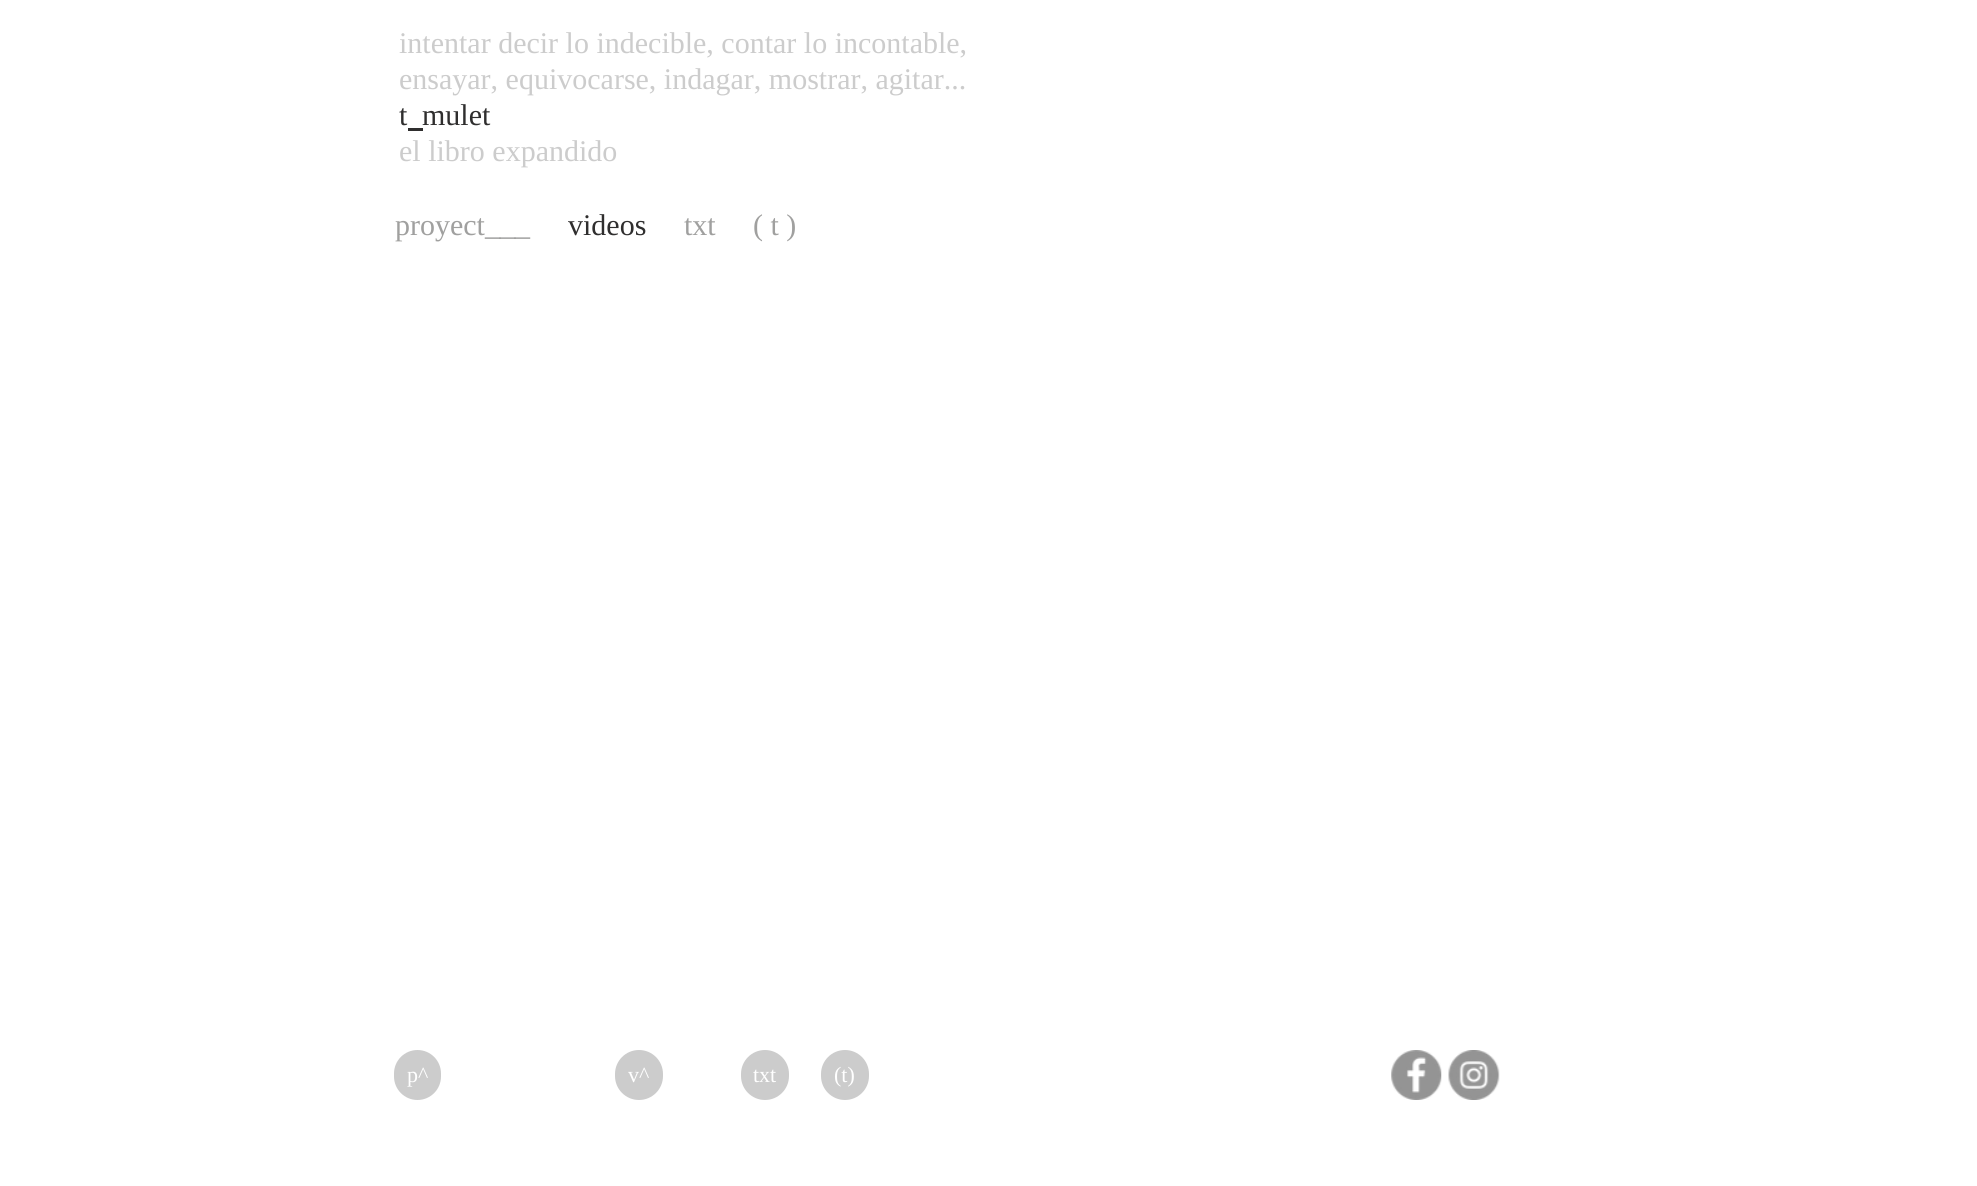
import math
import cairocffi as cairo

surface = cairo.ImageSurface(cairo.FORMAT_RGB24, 1977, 1186)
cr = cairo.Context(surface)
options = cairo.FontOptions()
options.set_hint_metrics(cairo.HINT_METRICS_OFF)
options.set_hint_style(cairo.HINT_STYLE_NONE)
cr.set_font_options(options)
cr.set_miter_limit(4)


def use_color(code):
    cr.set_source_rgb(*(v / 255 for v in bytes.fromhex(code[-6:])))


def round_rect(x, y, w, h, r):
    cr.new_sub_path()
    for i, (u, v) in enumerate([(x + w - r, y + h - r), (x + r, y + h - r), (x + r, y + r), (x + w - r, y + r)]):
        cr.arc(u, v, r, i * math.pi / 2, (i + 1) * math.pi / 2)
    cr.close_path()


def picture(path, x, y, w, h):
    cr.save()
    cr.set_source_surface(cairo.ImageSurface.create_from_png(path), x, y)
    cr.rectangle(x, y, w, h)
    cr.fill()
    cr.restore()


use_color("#ffffff")
cr.paint()
cr.select_font_face("Liberation Serif")
cr.set_font_size(30)
use_color("#cccccc")
cr.move_to(399, 53)
cr.show_text("intentar decir lo indecible, contar lo incontable,")
cr.move_to(399, 89)
cr.show_text("ensayar, equivocarse, indagar, mostrar, agitar...")
use_color("#2f2e2e")
cr.move_to(399, 125)
cr.show_text("t")
cr.rectangle(408, 128, 15, 3)
cr.fill()
cr.move_to(422, 125)
cr.show_text("mulet")
use_color("#cccccc")
cr.move_to(399, 161)
cr.show_text("el libro expandido")
use_color("#a0a09f")
cr.move_to(395, 235)
cr.show_text("proyect___")
use_color("#2f2e2e")
cr.move_to(568, 235)
cr.show_text("videos")
use_color("#a0a09f")
cr.move_to(684, 235)
cr.show_text("txt")
cr.move_to(753, 235)
cr.show_text("( t )")
use_color("#cccccc")
round_rect(394, 1050, 47, 50, 23.5)
cr.fill()
cr.set_font_size(22)
use_color("#ffffff")
cr.move_to(407, 1082)
cr.show_text("p^")
use_color("#cccccc")
round_rect(615, 1050, 48, 50, 24)
cr.fill()
use_color("#ffffff")
cr.move_to(628, 1082)
cr.show_text("v^")
use_color("#cccccc")
round_rect(741, 1050, 48, 50, 24)
cr.fill()
use_color("#ffffff")
cr.move_to(753, 1082)
cr.show_text("txt")
use_color("#cccccc")
round_rect(821, 1050, 48, 50, 24)
cr.fill()
use_color("#ffffff")
cr.move_to(834, 1082)
cr.show_text("(t)")
picture("img1.png", 1391, 1050, 51, 50)
picture("img2.png", 1448, 1050, 52, 50)
surface.write_to_png("result.png")
